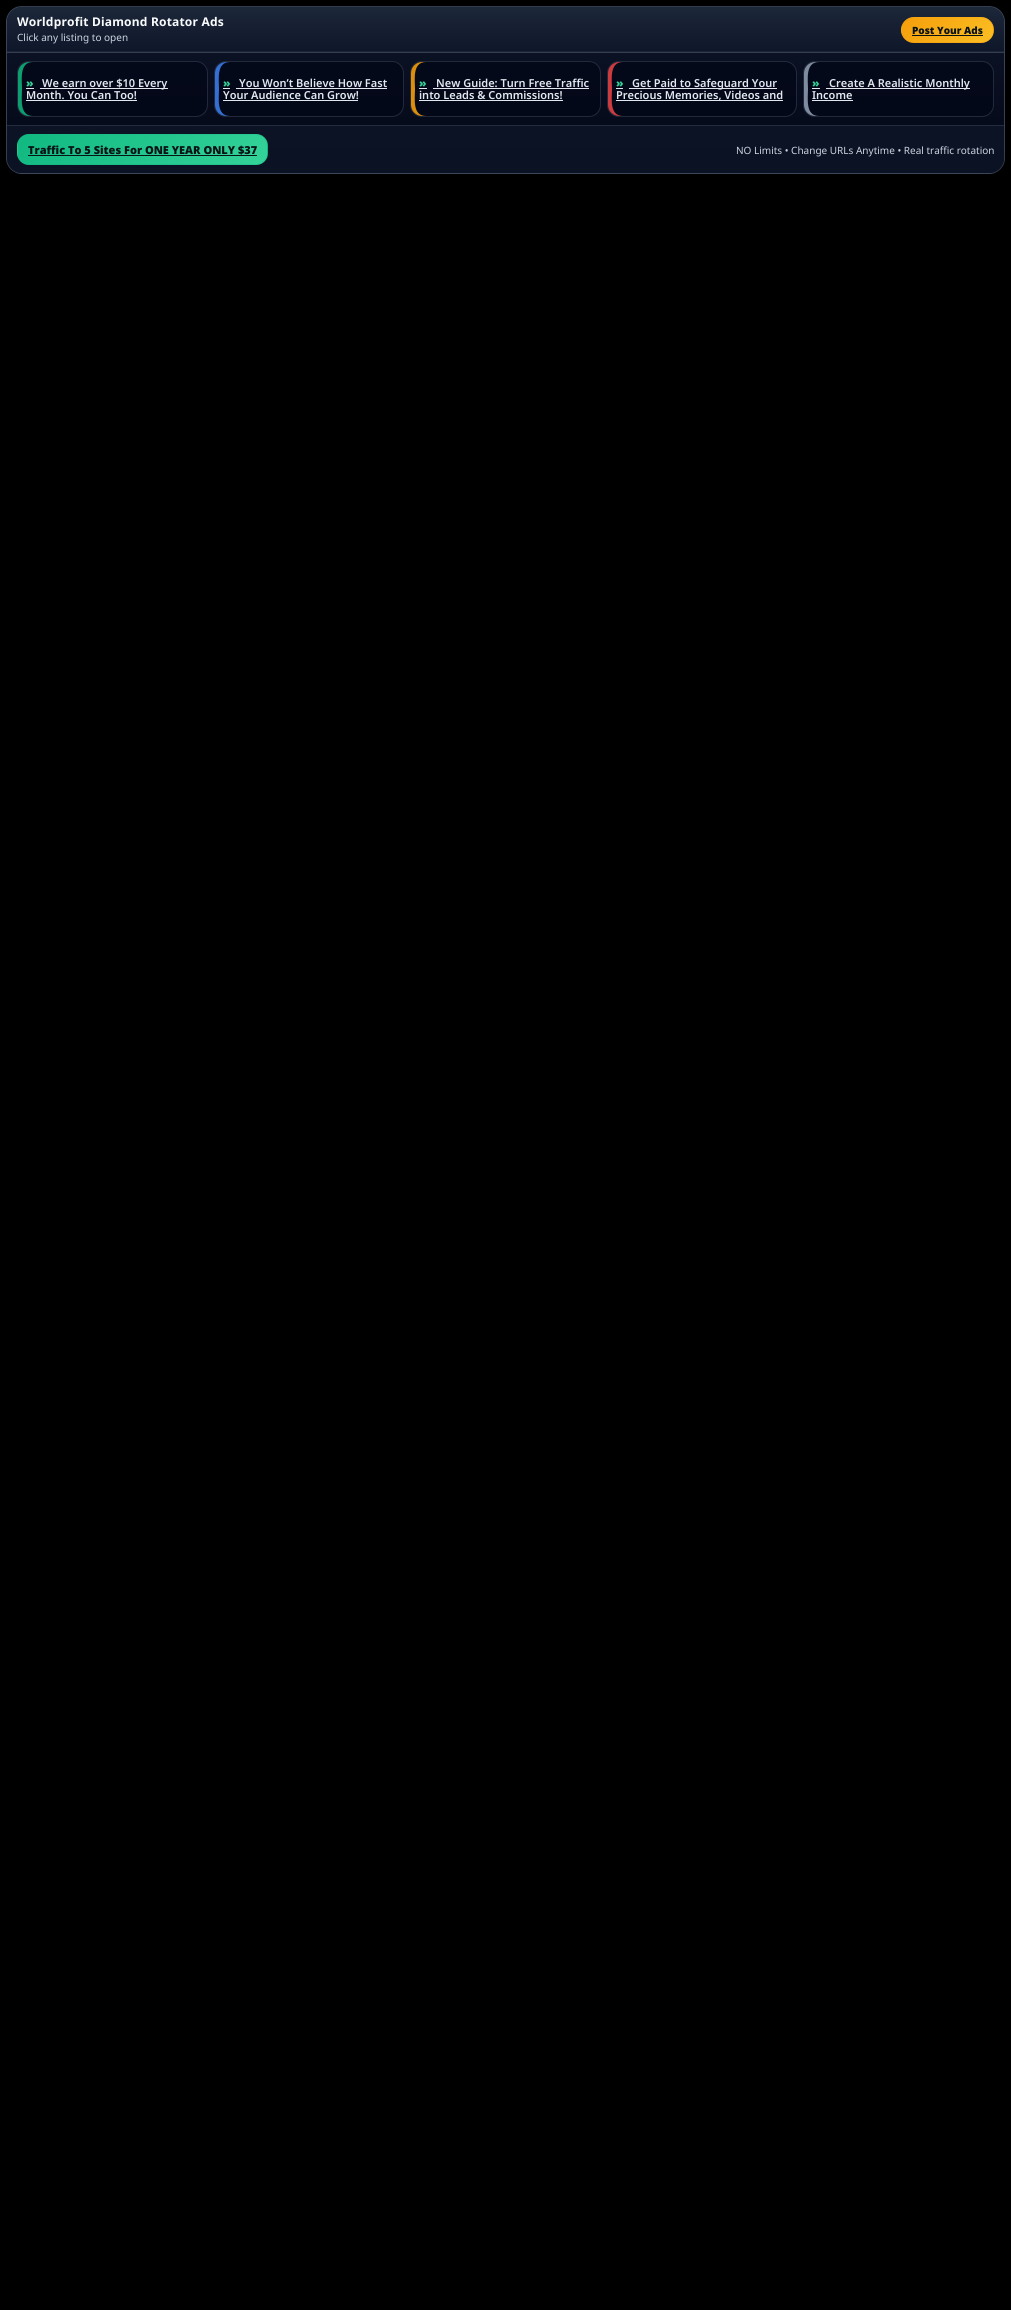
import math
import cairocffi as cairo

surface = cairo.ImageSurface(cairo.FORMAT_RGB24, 1011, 2310)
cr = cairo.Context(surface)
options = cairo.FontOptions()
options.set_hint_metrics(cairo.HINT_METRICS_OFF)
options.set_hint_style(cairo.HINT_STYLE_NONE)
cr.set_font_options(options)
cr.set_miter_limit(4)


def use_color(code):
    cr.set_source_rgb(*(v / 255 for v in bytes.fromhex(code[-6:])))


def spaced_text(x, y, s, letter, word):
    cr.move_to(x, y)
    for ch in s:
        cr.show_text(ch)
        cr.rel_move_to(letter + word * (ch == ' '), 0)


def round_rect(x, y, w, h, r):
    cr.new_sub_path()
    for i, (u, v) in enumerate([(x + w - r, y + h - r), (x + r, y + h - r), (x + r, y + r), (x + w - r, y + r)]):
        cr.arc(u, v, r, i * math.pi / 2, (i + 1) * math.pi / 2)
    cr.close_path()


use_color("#000000")
cr.paint()
cr.save()
round_rect(6, 6, 999, 168, 16)
cr.clip()
gradient = cairo.LinearGradient(506, -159, 506, 7)
gradient.add_color_stop_rgba(0, 0.055, 0.086, 0.157, 1)
gradient.add_color_stop_rgba(1, 0.008, 0.024, 0.086, 1)
cr.set_source(gradient)
cr.rectangle(16, 6, 979, 1)
cr.fill()
gradient = cairo.LinearGradient(506, 7, 506, 173)
gradient.add_color_stop_rgba(0, 0.055, 0.086, 0.157, 1)
gradient.add_color_stop_rgba(1, 0.008, 0.024, 0.086, 1)
cr.set_source(gradient)
cr.rectangle(6, 7, 999, 166)
cr.fill()
gradient = cairo.LinearGradient(506, 173, 506, 339)
gradient.add_color_stop_rgba(0, 0.055, 0.086, 0.157, 1)
gradient.add_color_stop_rgba(1, 0.008, 0.024, 0.086, 1)
cr.set_source(gradient)
cr.rectangle(16, 173, 979, 1)
cr.fill()
cr.restore()
round_rect(6.5, 6.5, 998, 167, 15.5)
cr.set_source_rgba(0.58, 0.639, 0.722, 0.35)
cr.set_line_width(1)
cr.stroke()
gradient = cairo.LinearGradient(506, 7, 506, 52)
gradient.add_color_stop_rgba(0, 0.118, 0.161, 0.231, 0.92)
gradient.add_color_stop_rgba(1, 0.059, 0.09, 0.165, 0.82)
cr.set_source(gradient)
cr.new_path()
cr.move_to(22, 7)
cr.line_to(989, 7)
cr.curve_to(997.5, 7, 1004, 13.5, 1004, 22)
cr.line_to(1004, 52)
cr.line_to(7, 52)
cr.line_to(7, 22)
cr.curve_to(7, 13.5, 13.5, 7, 22, 7)
cr.close_path()
cr.fill()
use_color("#1c2436")
cr.rectangle(7, 51, 997, 1)
cr.fill()
use_color("#323d50")
cr.rectangle(7, 52, 997, 1)
cr.fill()
cr.select_font_face("Noto Sans", cairo.FONT_SLANT_NORMAL, cairo.FONT_WEIGHT_BOLD)
cr.set_font_size(12)
use_color("#f8fafc")
spaced_text(17, 26, "Worldprofit Diamond Rotator Ads", 0.2, 0)
cr.select_font_face("Noto Sans")
cr.set_font_size(10)
use_color("#cbd5e1")
cr.move_to(17, 41)
cr.show_text("Click any listing to open")
cr.save()
round_rect(901, 17, 93, 26, 13)
cr.clip()
gradient = cairo.LinearGradient(919, -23, 976, 35)
gradient.add_color_stop_rgba(0, 0.961, 0.62, 0.043, 1)
gradient.add_color_stop_rgba(1, 0.984, 0.749, 0.141, 1)
cr.set_source(gradient)
cr.rectangle(902, 17, 91, 1)
cr.fill()
gradient = cairo.LinearGradient(828, 1.2, 885, 59)
gradient.add_color_stop_rgba(0, 0.961, 0.62, 0.043, 1)
gradient.add_color_stop_rgba(1, 0.984, 0.749, 0.141, 1)
cr.set_source(gradient)
cr.rectangle(901, 18, 1, 24)
cr.fill()
gradient = cairo.LinearGradient(919, 1.2, 976, 59)
gradient.add_color_stop_rgba(0, 0.961, 0.62, 0.043, 1)
gradient.add_color_stop_rgba(1, 0.984, 0.749, 0.141, 1)
cr.set_source(gradient)
cr.rectangle(902, 18, 91, 24)
cr.fill()
gradient = cairo.LinearGradient(1010, 1.2, 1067, 59)
gradient.add_color_stop_rgba(0, 0.961, 0.62, 0.043, 1)
gradient.add_color_stop_rgba(1, 0.984, 0.749, 0.141, 1)
cr.set_source(gradient)
cr.rectangle(993, 18, 1, 24)
cr.fill()
gradient = cairo.LinearGradient(919, 25, 976, 83)
gradient.add_color_stop_rgba(0, 0.961, 0.62, 0.043, 1)
gradient.add_color_stop_rgba(1, 0.984, 0.749, 0.141, 1)
cr.set_source(gradient)
cr.rectangle(902, 42, 91, 1)
cr.fill()
cr.restore()
round_rect(901.5, 17.5, 92, 25, 12.5)
cr.set_source_rgba(0.961, 0.62, 0.043, 0.35)
cr.stroke()
cr.select_font_face("Noto Sans Black")
use_color("#081316")
cr.move_to(912, 34)
cr.show_text("Post Your Ads")
cr.rectangle(912, 35, 71, 1)
cr.fill()
cr.set_source_rgba(0.008, 0.024, 0.09, 0.68)
round_rect(17, 61, 191, 56, 12)
cr.fill()
use_color("#0e9f71")
cr.new_path()
cr.move_to(29, 62)
cr.curve_to(23, 62, 18, 67, 18, 73)
cr.line_to(18, 105)
cr.curve_to(18, 111, 23, 116, 29, 116)
cr.line_to(33, 116)
cr.curve_to(19, 116, 22, 98, 22, 89)
cr.curve_to(22, 80, 19, 62, 33, 62)
cr.close_path()
cr.fill()
round_rect(17.5, 61.5, 190, 55, 11.5)
cr.set_source_rgba(0.58, 0.639, 0.722, 0.22)
cr.stroke()
cr.set_font_size(11)
use_color("#34d399")
cr.move_to(26, 87)
cr.show_text("»")
use_color("#e2e8f0")
cr.rectangle(26, 88, 8, 1)
cr.fill()
cr.rectangle(40, 88, 128, 1)
cr.fill()
cr.select_font_face("Noto Sans SemiBold")
cr.move_to(42, 87)
cr.show_text("We earn over $10 Every")
cr.move_to(26, 99)
cr.show_text("Month. You Can Too!")
cr.rectangle(26, 100, 111, 1)
cr.fill()
cr.set_source_rgba(0.008, 0.024, 0.09, 0.68)
round_rect(214, 61, 190, 56, 12)
cr.fill()
use_color("#3370d5")
cr.new_path()
cr.move_to(226, 62)
cr.curve_to(220, 62, 215, 67, 215, 73)
cr.line_to(215, 105)
cr.curve_to(215, 111, 220, 116, 226, 116)
cr.line_to(230, 116)
cr.curve_to(216, 116, 219, 98, 219, 89)
cr.curve_to(219, 80, 216, 62, 230, 62)
cr.close_path()
cr.fill()
round_rect(214.5, 61.5, 189, 55, 11.5)
cr.set_source_rgba(0.58, 0.639, 0.722, 0.22)
cr.stroke()
cr.select_font_face("Noto Sans Black")
use_color("#34d399")
cr.move_to(223, 87)
cr.show_text("»")
use_color("#e2e8f0")
cr.rectangle(223, 88, 7, 1)
cr.fill()
cr.select_font_face("Noto Sans SemiBold")
cr.move_to(239, 87)
cr.show_text("You Won’t Believe How Fast")
cr.rectangle(236, 88, 151, 1)
cr.fill()
cr.move_to(223, 99)
cr.show_text("Your Audience Can Grow!")
cr.rectangle(223, 100, 135, 1)
cr.fill()
cr.set_source_rgba(0.008, 0.024, 0.09, 0.68)
round_rect(410, 61, 191, 56, 12)
cr.fill()
use_color("#dd8f0c")
cr.new_path()
cr.move_to(422, 62)
cr.curve_to(416, 62, 411, 67, 411, 73)
cr.line_to(411, 105)
cr.curve_to(411, 111, 416, 116, 422, 116)
cr.line_to(426, 116)
cr.curve_to(412, 116, 415, 98, 415, 89)
cr.curve_to(415, 80, 412, 62, 426, 62)
cr.close_path()
cr.fill()
round_rect(410.5, 61.5, 190, 55, 11.5)
cr.set_source_rgba(0.58, 0.639, 0.722, 0.22)
cr.stroke()
cr.select_font_face("Noto Sans Black")
use_color("#34d399")
cr.move_to(419, 87)
cr.show_text("»")
use_color("#e2e8f0")
cr.rectangle(419, 88, 8, 1)
cr.fill()
cr.select_font_face("Noto Sans SemiBold")
cr.move_to(436, 87)
cr.show_text("New Guide: Turn Free Traffic")
cr.rectangle(433, 88, 156, 1)
cr.fill()
cr.move_to(419, 99)
cr.show_text("into Leads & Commissions!")
cr.rectangle(419, 100, 144, 1)
cr.fill()
cr.set_source_rgba(0.008, 0.024, 0.09, 0.68)
round_rect(607, 61, 190, 56, 12)
cr.fill()
use_color("#cc3b3e")
cr.new_path()
cr.move_to(619, 62)
cr.curve_to(613, 62, 608, 67, 608, 73)
cr.line_to(608, 105)
cr.curve_to(608, 111, 613, 116, 619, 116)
cr.line_to(623, 116)
cr.curve_to(609, 116, 612, 98, 612, 89)
cr.curve_to(612, 80, 609, 62, 623, 62)
cr.close_path()
cr.fill()
round_rect(607.5, 61.5, 189, 55, 11.5)
cr.set_source_rgba(0.58, 0.639, 0.722, 0.22)
cr.stroke()
cr.select_font_face("Noto Sans Black")
use_color("#34d399")
cr.move_to(616, 87)
cr.show_text("»")
use_color("#e2e8f0")
cr.rectangle(616, 88, 7, 1)
cr.fill()
cr.rectangle(629, 88, 148, 1)
cr.fill()
cr.select_font_face("Noto Sans SemiBold")
cr.move_to(632, 87)
cr.show_text("Get Paid to Safeguard Your")
cr.rectangle(616, 100, 167, 1)
cr.fill()
cr.move_to(616, 99)
cr.show_text("Precious Memories, Videos and")
cr.set_source_rgba(0.008, 0.024, 0.09, 0.68)
round_rect(803, 61, 191, 56, 12)
cr.fill()
use_color("#7e8ca0")
cr.new_path()
cr.move_to(815, 62)
cr.curve_to(809, 62, 804, 67, 804, 73)
cr.line_to(804, 105)
cr.curve_to(804, 111, 809, 116, 815, 116)
cr.line_to(819, 116)
cr.curve_to(805, 116, 808, 98, 808, 89)
cr.curve_to(808, 80, 805, 62, 819, 62)
cr.close_path()
cr.fill()
round_rect(803.5, 61.5, 190, 55, 11.5)
cr.set_source_rgba(0.58, 0.639, 0.722, 0.22)
cr.stroke()
cr.select_font_face("Noto Sans Black")
use_color("#34d399")
cr.move_to(812, 87)
cr.show_text("»")
use_color("#e2e8f0")
cr.rectangle(812, 88, 8, 1)
cr.fill()
cr.rectangle(826, 88, 144, 1)
cr.fill()
cr.select_font_face("Noto Sans SemiBold")
cr.move_to(829, 87)
cr.show_text("Create A Realistic Monthly")
cr.move_to(812, 99)
cr.show_text("Income")
cr.rectangle(812, 100, 41, 1)
cr.fill()
cr.set_source_rgba(0.059, 0.09, 0.165, 0.7)
cr.new_path()
cr.move_to(7, 125)
cr.line_to(1004, 125)
cr.line_to(1004, 158)
cr.curve_to(1004, 166.5, 997.5, 173, 989, 173)
cr.line_to(22, 173)
cr.curve_to(13.5, 173, 7, 166.5, 7, 158)
cr.close_path()
cr.fill()
use_color("#242d40")
cr.rectangle(7, 125, 997, 1)
cr.fill()
cr.save()
round_rect(17, 134, 251, 31, 12)
cr.clip()
gradient = cairo.LinearGradient(73, 51, 212, 190)
gradient.add_color_stop_rgba(0, 0.063, 0.725, 0.506, 1)
gradient.add_color_stop_rgba(1, 0.204, 0.827, 0.6, 1)
cr.set_source(gradient)
cr.rectangle(18, 134, 249, 1)
cr.fill()
gradient = cairo.LinearGradient(-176, 80, -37, 219)
gradient.add_color_stop_rgba(0, 0.063, 0.725, 0.506, 1)
gradient.add_color_stop_rgba(1, 0.204, 0.827, 0.6, 1)
cr.set_source(gradient)
cr.rectangle(17, 135, 1, 29)
cr.fill()
gradient = cairo.LinearGradient(73, 80, 212, 219)
gradient.add_color_stop_rgba(0, 0.063, 0.725, 0.506, 1)
gradient.add_color_stop_rgba(1, 0.204, 0.827, 0.6, 1)
cr.set_source(gradient)
cr.rectangle(18, 135, 249, 29)
cr.fill()
gradient = cairo.LinearGradient(322, 80, 461, 219)
gradient.add_color_stop_rgba(0, 0.063, 0.725, 0.506, 1)
gradient.add_color_stop_rgba(1, 0.204, 0.827, 0.6, 1)
cr.set_source(gradient)
cr.rectangle(267, 135, 1, 29)
cr.fill()
gradient = cairo.LinearGradient(73, 109, 212, 248)
gradient.add_color_stop_rgba(0, 0.063, 0.725, 0.506, 1)
gradient.add_color_stop_rgba(1, 0.204, 0.827, 0.6, 1)
cr.set_source(gradient)
cr.rectangle(18, 164, 249, 1)
cr.fill()
cr.restore()
round_rect(17.5, 134.5, 250, 30, 11.5)
cr.set_source_rgba(0.063, 0.725, 0.506, 0.35)
cr.stroke()
cr.select_font_face("Noto Sans Black")
use_color("#081316")
cr.move_to(28, 154)
cr.show_text("Traffic To 5 Sites For ONE YEAR ONLY $37")
cr.rectangle(28, 155, 229, 1)
cr.fill()
cr.select_font_face("Noto Sans")
cr.set_font_size(10)
use_color("#cbd5e1")
cr.move_to(736, 154)
cr.show_text("NO Limits • Change URLs Anytime • Real traffic rotation")
surface.write_to_png("result.png")
